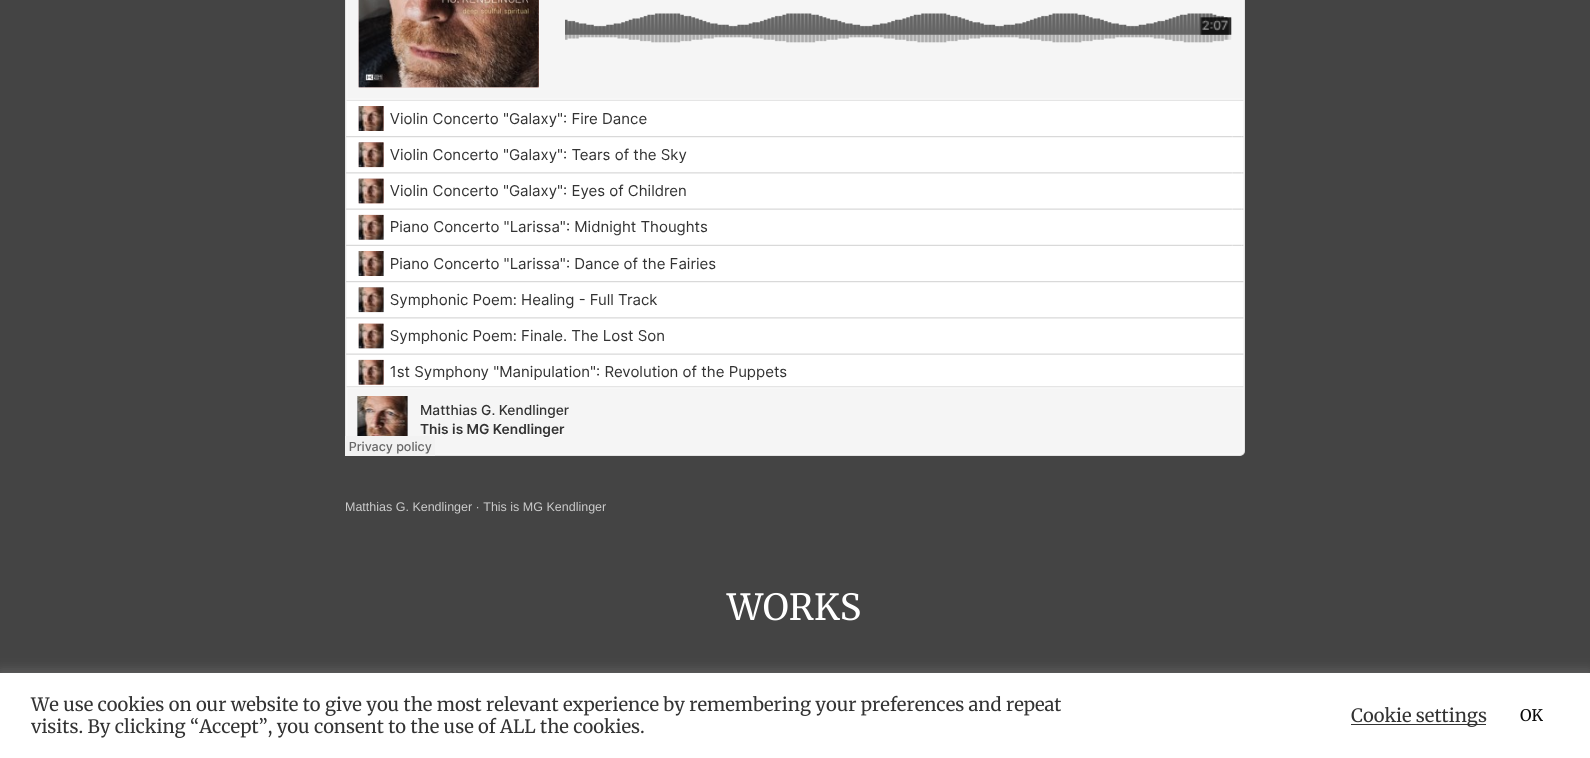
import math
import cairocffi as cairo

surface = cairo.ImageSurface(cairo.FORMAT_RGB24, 1590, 758)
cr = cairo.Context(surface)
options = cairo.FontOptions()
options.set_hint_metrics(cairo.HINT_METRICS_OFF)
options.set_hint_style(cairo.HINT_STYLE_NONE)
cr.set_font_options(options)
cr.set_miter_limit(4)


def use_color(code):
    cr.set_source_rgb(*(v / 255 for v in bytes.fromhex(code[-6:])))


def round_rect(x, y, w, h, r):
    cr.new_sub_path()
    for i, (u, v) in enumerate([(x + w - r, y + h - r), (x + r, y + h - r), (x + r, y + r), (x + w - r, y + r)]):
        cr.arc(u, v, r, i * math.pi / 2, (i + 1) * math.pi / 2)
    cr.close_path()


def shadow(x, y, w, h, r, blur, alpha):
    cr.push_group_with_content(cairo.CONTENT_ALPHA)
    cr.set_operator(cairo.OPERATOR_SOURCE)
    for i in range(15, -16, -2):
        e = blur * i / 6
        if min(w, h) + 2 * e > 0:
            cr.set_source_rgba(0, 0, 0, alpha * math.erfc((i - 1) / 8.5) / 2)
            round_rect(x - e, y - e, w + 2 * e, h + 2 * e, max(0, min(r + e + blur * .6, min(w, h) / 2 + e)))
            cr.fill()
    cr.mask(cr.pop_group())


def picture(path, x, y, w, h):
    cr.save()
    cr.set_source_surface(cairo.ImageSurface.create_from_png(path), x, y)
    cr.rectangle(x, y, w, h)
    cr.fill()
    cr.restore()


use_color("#444444")
cr.paint()
picture("img1.png", 345, 0, 900, 456)
cr.select_font_face("Liberation Sans")
cr.set_font_size(12.5)
use_color("#cccccc")
cr.move_to(345, 511)
cr.show_text("Matthias G. Kendlinger · This is MG Kendlinger")
cr.select_font_face("Merriweather")
cr.set_font_size(36)
use_color("#ffffff")
cr.move_to(727, 620)
cr.show_text("WORKS")
use_color("#acabab")
shadow(0, 671, 1590, 87, 0, 6, 0.3)
use_color("#ffffff")
cr.rectangle(0, 673, 1590, 85)
cr.fill()
cr.set_font_size(18.33)
use_color("#333333")
cr.move_to(31, 711)
cr.show_text("We use cookies on our website to give you the most relevant experience by remembering your preferences and repeat")
cr.move_to(31, 733)
cr.show_text("visits. By clicking “Accept”, you consent to the use of ALL the cookies.")
cr.rectangle(1351, 724, 135, 1)
cr.fill()
cr.move_to(1351, 722)
cr.show_text("Cookie settings")
cr.set_font_size(16)
use_color("#0a0a0a")
cr.move_to(1520, 721)
cr.show_text("OK")
surface.write_to_png("result.png")
